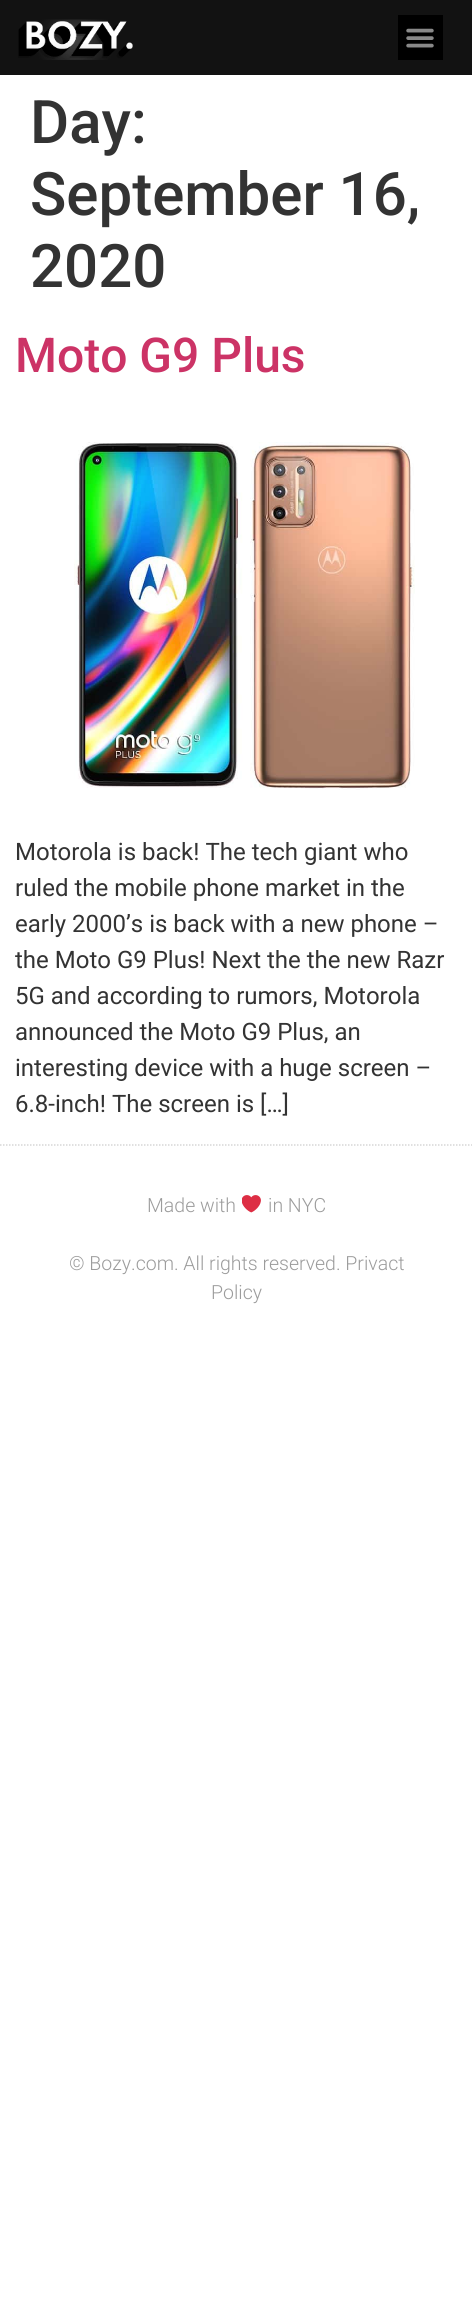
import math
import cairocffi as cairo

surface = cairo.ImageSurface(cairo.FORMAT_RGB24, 472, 2316)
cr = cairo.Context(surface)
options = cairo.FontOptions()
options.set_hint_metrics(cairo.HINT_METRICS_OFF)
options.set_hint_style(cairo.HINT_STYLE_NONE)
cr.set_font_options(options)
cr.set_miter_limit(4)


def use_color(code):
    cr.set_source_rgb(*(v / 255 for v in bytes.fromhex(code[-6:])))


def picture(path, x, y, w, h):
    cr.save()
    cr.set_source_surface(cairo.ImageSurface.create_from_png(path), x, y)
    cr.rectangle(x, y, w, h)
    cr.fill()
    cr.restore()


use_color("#ffffff")
cr.paint()
use_color("#121212")
cr.rectangle(0, 0, 472, 75)
cr.fill()
picture("img1.png", 18, 19, 115, 41)
use_color("#000000")
cr.rectangle(398, 15, 45, 45)
cr.fill()
picture("img2.png", 406, 28, 28, 20)
cr.select_font_face("Roboto Medium")
cr.set_font_size(60)
use_color("#333333")
cr.move_to(30, 143)
cr.show_text("Day:")
cr.move_to(30, 215)
cr.show_text("September 16,")
cr.move_to(30, 287)
cr.show_text("2020")
cr.set_font_size(48)
use_color("#cc3366")
cr.move_to(15, 372)
cr.show_text("Moto G9 Plus")
picture("img3.png", 74, 442, 341, 348)
cr.select_font_face("Roboto")
cr.set_font_size(24)
use_color("#333333")
cr.move_to(15, 860)
cr.show_text("Motorola is back! The tech giant who")
cr.move_to(15, 896)
cr.show_text("ruled the mobile phone market in the")
cr.move_to(15, 932)
cr.show_text("early 2000’s is back with a new phone –")
cr.move_to(15, 968)
cr.show_text("the Moto G9 Plus! Next the the new Razr")
cr.move_to(15, 1004)
cr.show_text("5G and according to rumors, Motorola")
cr.move_to(15, 1040)
cr.show_text("announced the Moto G9 Plus, an")
cr.move_to(15, 1076)
cr.show_text("interesting device with a huge screen –")
cr.move_to(15, 1112)
cr.show_text("6.8-inch! The screen is […]")
cr.new_path()
cr.move_to(0, 1145)
cr.line_to(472.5, 1145)
use_color("#d6d6d6")
cr.set_line_width(1.5)
cr.set_dash([1.5, 1.5])
cr.stroke()
cr.select_font_face("Roboto Light")
cr.set_font_size(19.5)
use_color("#9c9c9c")
cr.move_to(147, 1212)
cr.show_text("Made with")
picture("img4.png", 242, 1195, 19, 18)
cr.move_to(268, 1212)
cr.show_text("in NYC")
cr.move_to(69, 1270)
cr.show_text("© Bozy.com. All rights reserved. Privact")
cr.move_to(211, 1299)
cr.show_text("Policy")
surface.write_to_png("result.png")
